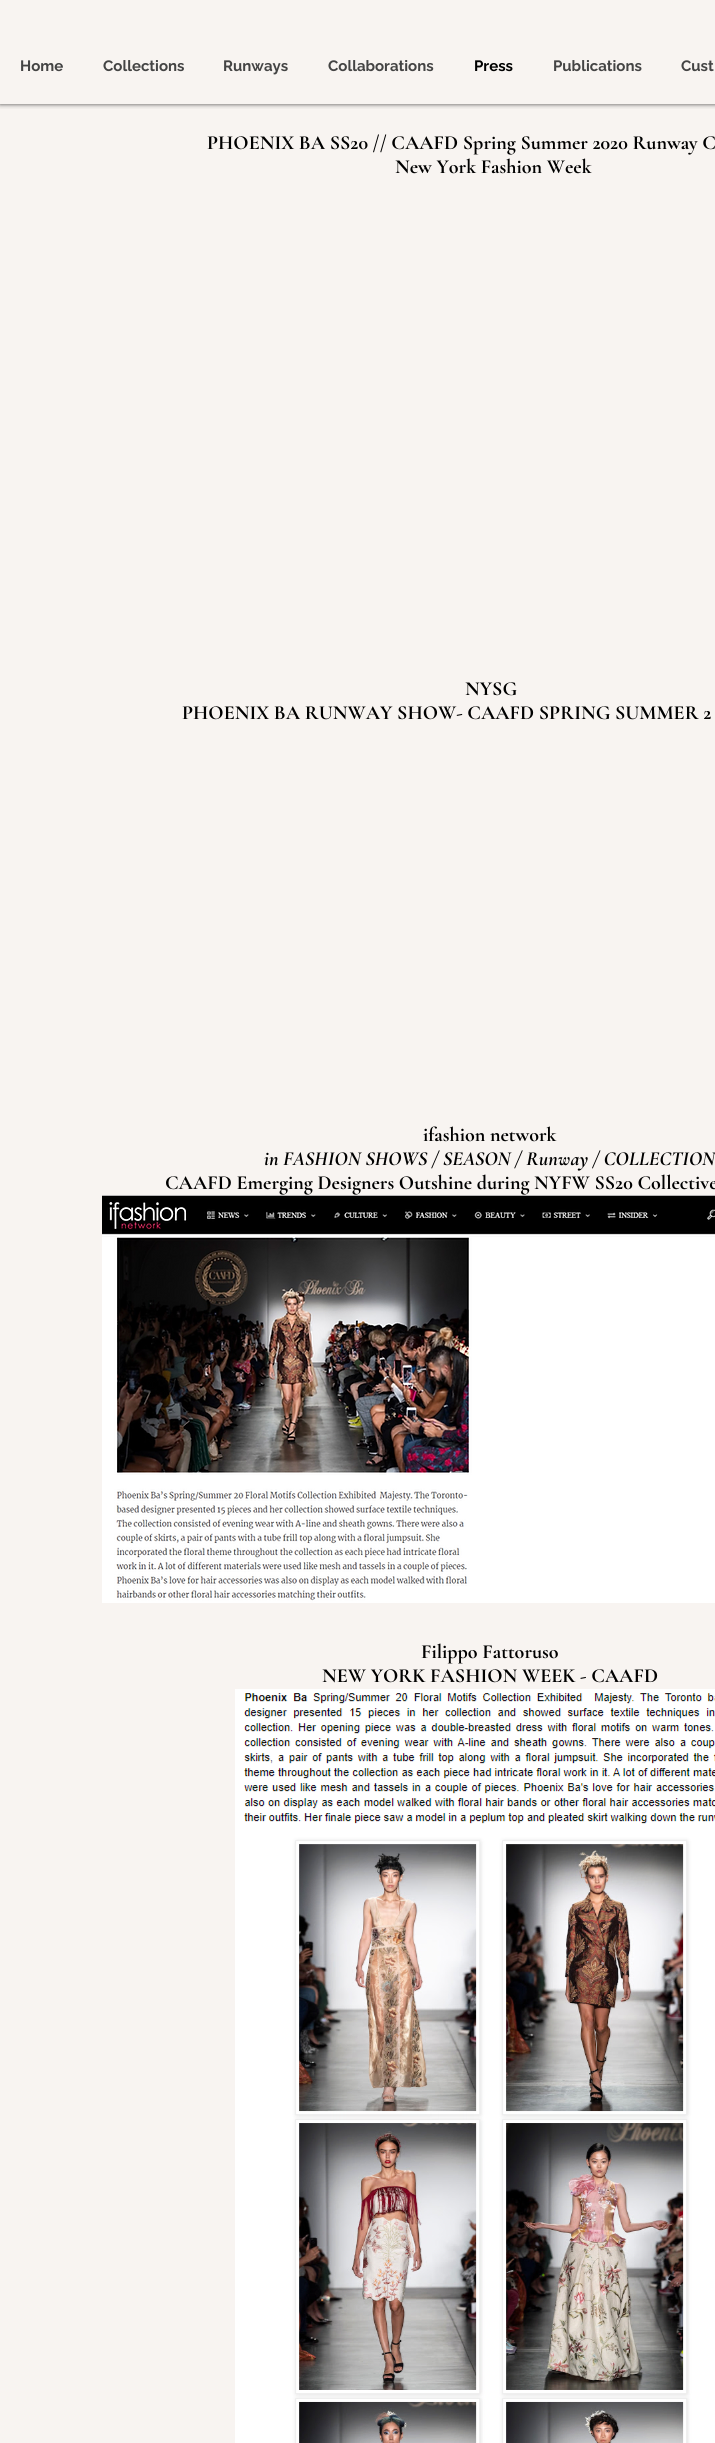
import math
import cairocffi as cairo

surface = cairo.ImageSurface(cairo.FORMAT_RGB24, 715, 2443)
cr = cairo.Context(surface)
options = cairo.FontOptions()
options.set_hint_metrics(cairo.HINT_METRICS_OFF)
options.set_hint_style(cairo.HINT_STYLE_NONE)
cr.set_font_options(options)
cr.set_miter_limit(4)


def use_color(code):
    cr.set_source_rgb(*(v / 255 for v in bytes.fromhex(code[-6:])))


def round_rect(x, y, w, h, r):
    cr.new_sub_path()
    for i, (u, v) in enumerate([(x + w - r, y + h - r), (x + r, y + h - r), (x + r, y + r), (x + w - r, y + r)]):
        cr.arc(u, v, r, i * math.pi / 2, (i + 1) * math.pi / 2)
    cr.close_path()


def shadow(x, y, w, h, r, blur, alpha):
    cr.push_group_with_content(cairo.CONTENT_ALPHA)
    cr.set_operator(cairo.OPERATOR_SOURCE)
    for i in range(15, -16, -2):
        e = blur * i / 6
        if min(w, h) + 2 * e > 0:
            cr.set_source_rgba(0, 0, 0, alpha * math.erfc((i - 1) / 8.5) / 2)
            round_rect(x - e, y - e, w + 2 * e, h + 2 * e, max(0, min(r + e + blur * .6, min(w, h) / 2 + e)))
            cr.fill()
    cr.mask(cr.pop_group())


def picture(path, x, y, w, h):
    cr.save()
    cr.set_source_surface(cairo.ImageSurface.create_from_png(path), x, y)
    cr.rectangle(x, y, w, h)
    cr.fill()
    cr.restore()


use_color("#f8f4f1")
cr.paint()
cr.save()
cr.rectangle(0, 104, 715, 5)
cr.clip()
use_color("#000000")
shadow(0, 0, 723, 104, 0, 2.5, 0.7)
cr.restore()
cr.select_font_face("Raleway", cairo.FONT_SLANT_NORMAL, cairo.FONT_WEIGHT_BOLD)
cr.set_font_size(15)
use_color("#444444")
cr.move_to(20, 71)
cr.show_text("Home")
cr.move_to(103, 71)
cr.show_text("Collections")
cr.move_to(223, 71)
cr.show_text("Runways")
cr.move_to(328, 71)
cr.show_text("Collaborations")
use_color("#000000")
cr.move_to(474, 71)
cr.show_text("Press")
use_color("#444444")
cr.move_to(553, 71)
cr.show_text("Publications")
cr.move_to(681, 71)
cr.show_text("Cust")
cr.select_font_face("Cormorant Garamond", cairo.FONT_SLANT_NORMAL, cairo.FONT_WEIGHT_BOLD)
cr.set_font_size(20)
use_color("#000000")
cr.move_to(207, 149)
cr.show_text("PHOENIX BA SS20 // CAAFD Spring Summer 2020 Runway C")
cr.move_to(395, 173)
cr.show_text("New York Fashion Week")
cr.move_to(465, 695)
cr.show_text("NYSG")
cr.move_to(182, 719)
cr.show_text("PHOENIX BA RUNWAY SHOW- CAAFD SPRING SUMMER 2")
cr.move_to(423, 1141)
cr.show_text("ifashion network")
cr.select_font_face("Cormorant Garamond", cairo.FONT_SLANT_ITALIC, cairo.FONT_WEIGHT_BOLD)
cr.move_to(264, 1165)
cr.show_text("in FASHION SHOWS / SEASON / Runway / COLLECTION")
cr.select_font_face("Cormorant Garamond", cairo.FONT_SLANT_NORMAL, cairo.FONT_WEIGHT_BOLD)
cr.move_to(165, 1189)
cr.show_text("CAAFD Emerging Designers Outshine during NYFW SS20 Collective")
picture("img1.png", 102, 1195, 613, 408)
cr.move_to(421, 1658)
cr.show_text("Filippo Fattoruso")
cr.move_to(322, 1682)
cr.show_text("NEW YORK FASHION WEEK - CAAFD")
picture("img2.png", 235, 1689, 480, 754)
surface.write_to_png("result.png")
